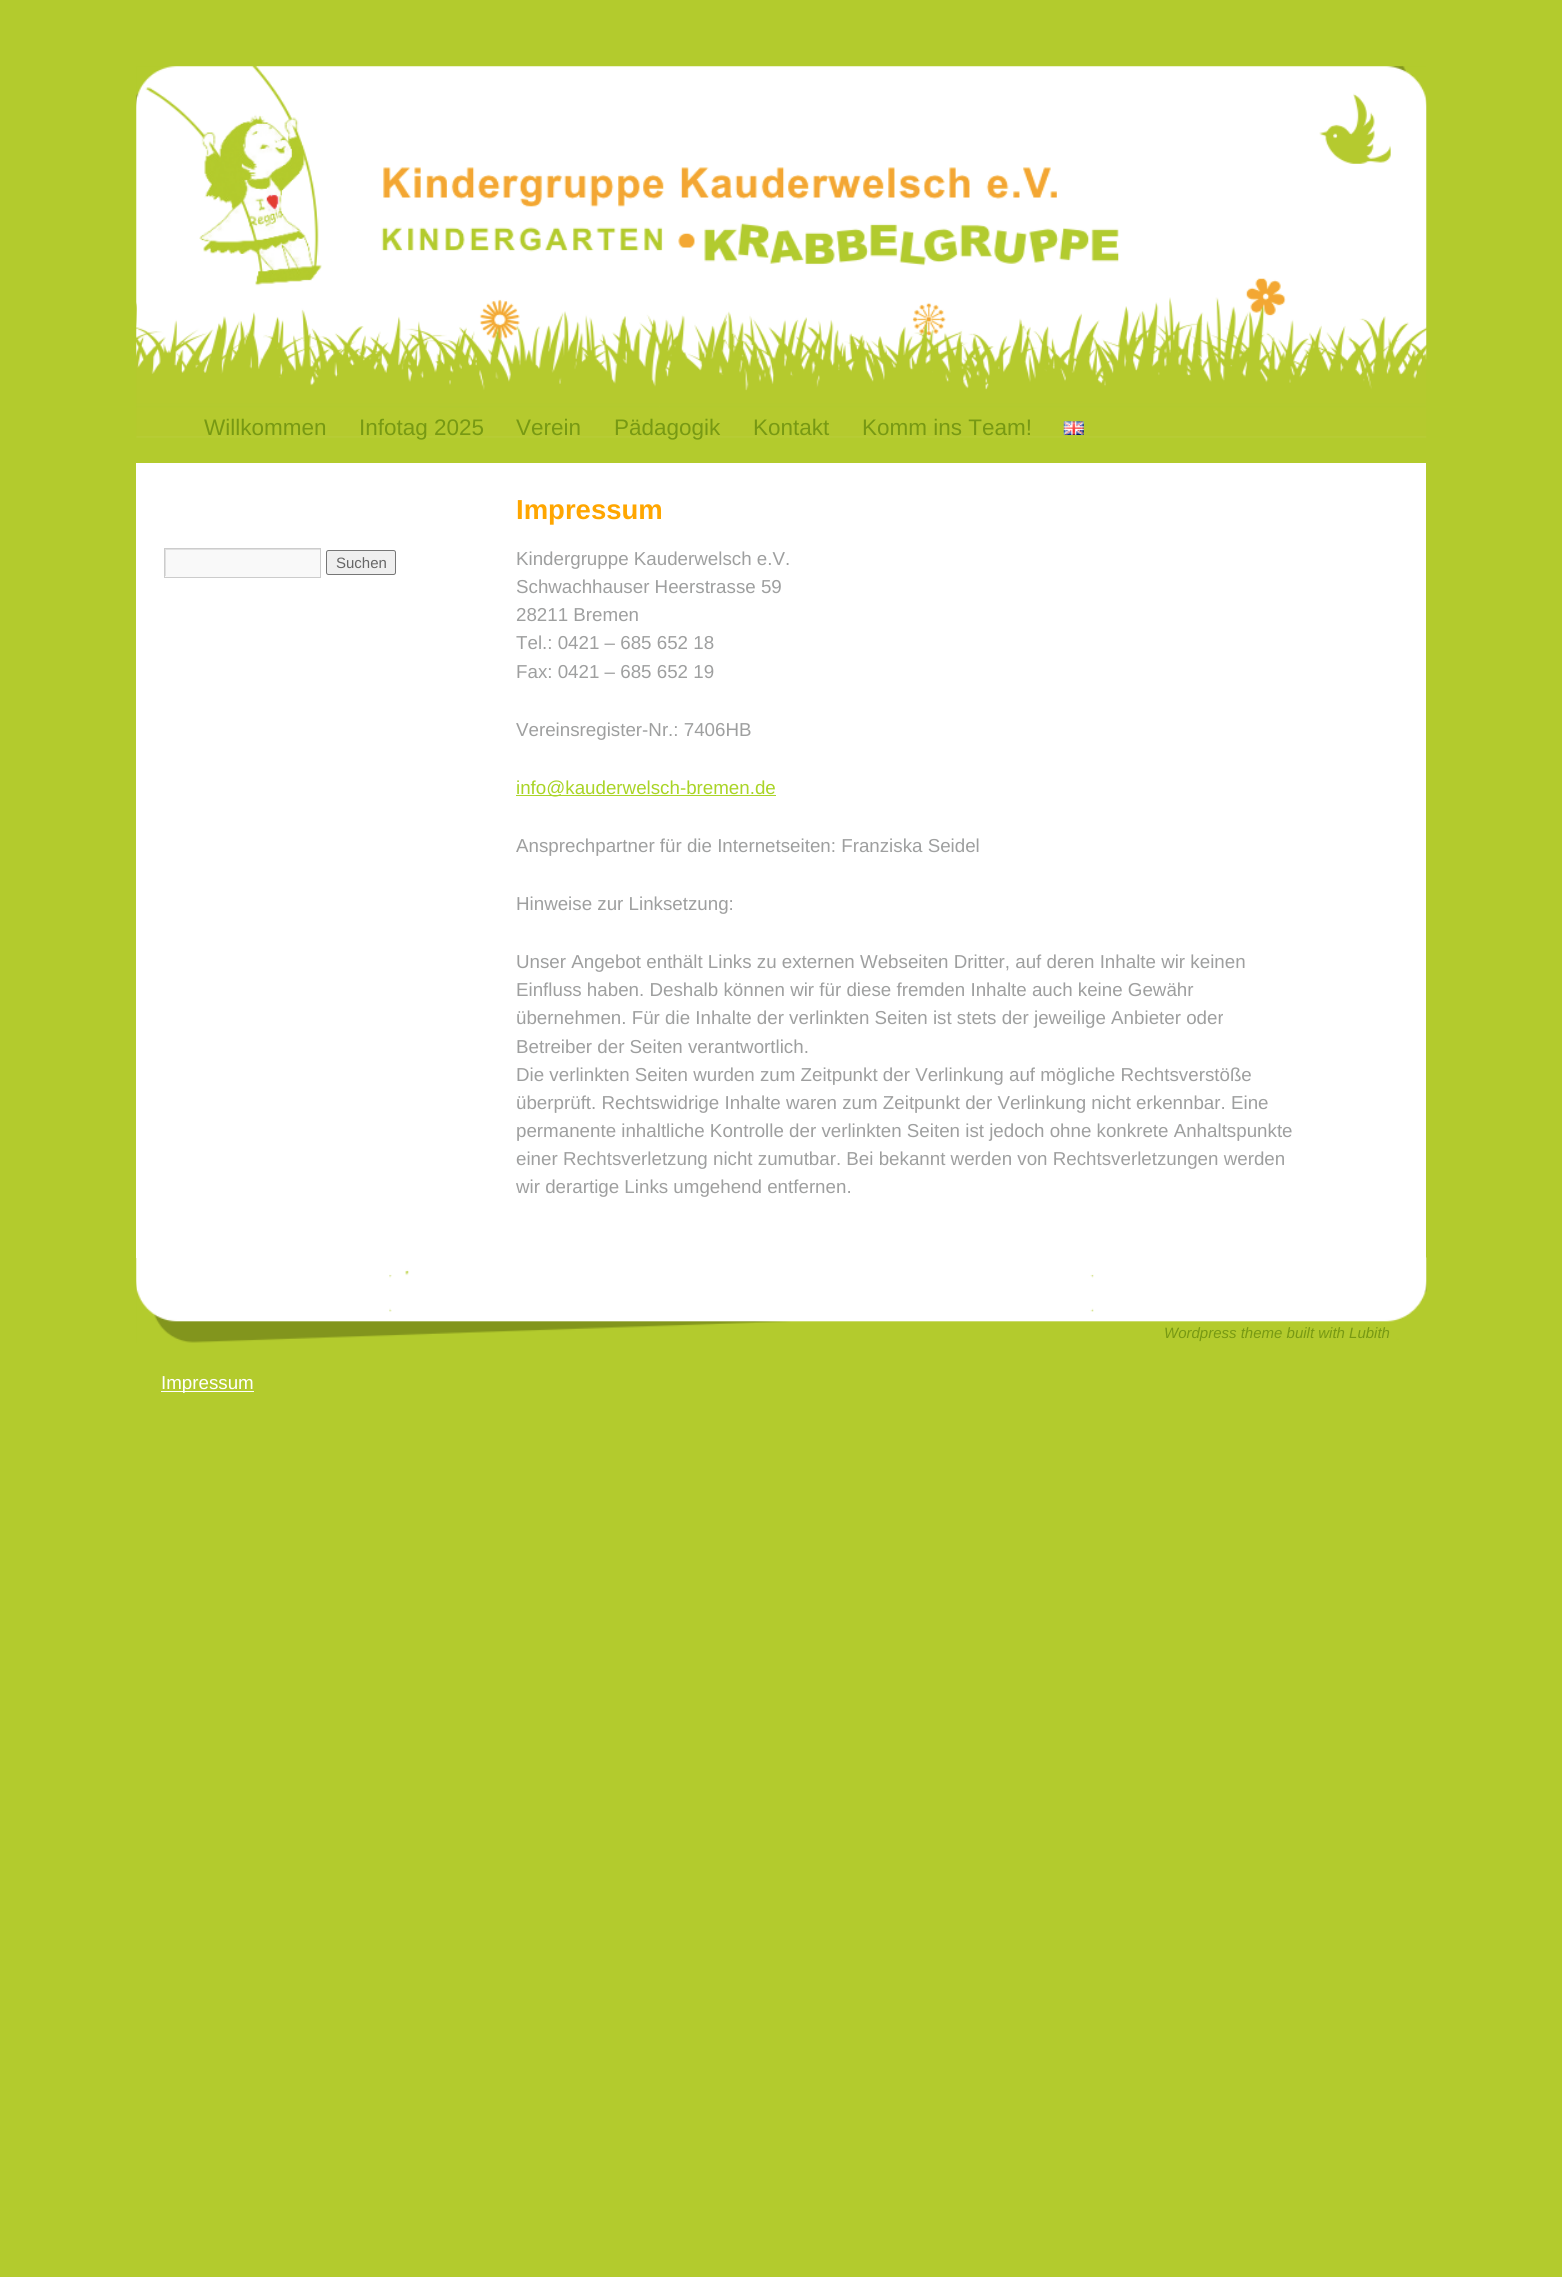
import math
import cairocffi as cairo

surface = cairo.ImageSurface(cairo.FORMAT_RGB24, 1562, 2277)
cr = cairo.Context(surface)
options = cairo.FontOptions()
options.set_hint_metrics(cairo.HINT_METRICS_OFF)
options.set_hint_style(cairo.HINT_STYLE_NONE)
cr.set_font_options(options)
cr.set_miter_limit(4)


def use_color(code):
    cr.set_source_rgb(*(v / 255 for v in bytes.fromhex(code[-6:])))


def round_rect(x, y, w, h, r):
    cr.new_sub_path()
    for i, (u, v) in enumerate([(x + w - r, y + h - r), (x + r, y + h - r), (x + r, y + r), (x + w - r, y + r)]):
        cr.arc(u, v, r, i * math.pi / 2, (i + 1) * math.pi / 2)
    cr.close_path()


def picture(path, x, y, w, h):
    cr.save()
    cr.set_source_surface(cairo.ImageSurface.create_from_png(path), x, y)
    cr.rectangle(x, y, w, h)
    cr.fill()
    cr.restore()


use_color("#b3cb2d")
cr.paint()
picture("img1.png", 136, 66, 1291, 372)
cr.select_font_face("Liberation Sans")
cr.set_font_size(22.5)
use_color("#779913")
cr.move_to(204, 435)
cr.show_text("Willkommen")
cr.move_to(359, 435)
cr.show_text("Infotag 2025")
cr.move_to(516, 435)
cr.show_text("Verein")
cr.move_to(614, 435)
cr.show_text("Pädagogik")
cr.move_to(753, 435)
cr.show_text("Kontakt")
cr.move_to(862, 435)
cr.show_text("Komm ins Team!")
picture("img2.png", 1063, 421, 21, 14)
use_color("#ffffff")
cr.rectangle(136, 463, 1290, 795)
cr.fill()
use_color("#f9f9f9")
cr.rectangle(165, 550, 155, 27)
cr.fill()
cr.save()
cr.rectangle(165, 549, 155, 27)
cr.clip()
use_color("#e0e0e0")
cr.set_fill_rule(cairo.FILL_RULE_EVEN_ODD)
cr.new_path()
cr.move_to(41, 425)
cr.line_to(444, 425)
cr.line_to(444, 700)
cr.line_to(41, 700)
cr.close_path()
cr.move_to(166, 550)
cr.line_to(321, 550)
cr.line_to(321, 578)
cr.line_to(166, 578)
cr.close_path()
cr.fill()
cr.restore()
cr.rectangle(164.5, 548.5, 156, 29)
use_color("#cccccc")
cr.set_line_width(1)
cr.stroke()
use_color("#efefef")
round_rect(326.5, 550.5, 69, 24, 2)
cr.fill_preserve()
use_color("#767676")
cr.stroke()
cr.set_font_size(15)
use_color("#666666")
cr.move_to(336, 568)
cr.show_text("Suchen")
cr.select_font_face("Liberation Sans", cairo.FONT_SLANT_NORMAL, cairo.FONT_WEIGHT_BOLD)
cr.set_font_size(27.5)
use_color("#ffa600")
cr.move_to(516, 519)
cr.show_text("Impressum")
cr.select_font_face("Liberation Sans")
cr.set_font_size(18.75)
use_color("#9e9f9f")
cr.move_to(516, 565)
cr.show_text("Kindergruppe Kauderwelsch e.V.")
cr.move_to(516, 593)
cr.show_text("Schwachhauser Heerstrasse 59")
cr.move_to(516, 621)
cr.show_text("28211 Bremen")
cr.move_to(516, 649)
cr.show_text("Tel.: 0421 – 685 652 18")
cr.move_to(516, 678)
cr.show_text("Fax: 0421 – 685 652 19")
cr.move_to(516, 736)
cr.show_text("Vereinsregister-Nr.: 7406HB")
use_color("#a9d426")
cr.rectangle(516, 795, 260, 1)
cr.fill()
cr.move_to(516, 794)
cr.show_text("info@kauderwelsch-bremen.de")
use_color("#9e9f9f")
cr.move_to(516, 852)
cr.show_text("Ansprechpartner für die Internetseiten: Franziska Seidel")
cr.move_to(516, 910)
cr.show_text("Hinweise zur Linksetzung:")
cr.move_to(516, 968)
cr.show_text("Unser Angebot enthält Links zu externen Webseiten Dritter, auf deren Inhalte wir keinen")
cr.move_to(516, 996)
cr.show_text("Einfluss haben. Deshalb können wir für diese fremden Inhalte auch keine Gewähr")
cr.move_to(516, 1024)
cr.show_text("übernehmen. Für die Inhalte der verlinkten Seiten ist stets der jeweilige Anbieter oder")
cr.move_to(516, 1053)
cr.show_text("Betreiber der Seiten verantwortlich.")
cr.move_to(516, 1081)
cr.show_text("Die verlinkten Seiten wurden zum Zeitpunkt der Verlinkung auf mögliche Rechtsverstöße")
cr.move_to(516, 1109)
cr.show_text("überprüft. Rechtswidrige Inhalte waren zum Zeitpunkt der Verlinkung nicht erkennbar. Eine")
cr.move_to(516, 1137)
cr.show_text("permanente inhaltliche Kontrolle der verlinkten Seiten ist jedoch ohne konkrete Anhaltspunkte")
cr.move_to(516, 1165)
cr.show_text("einer Rechtsverletzung nicht zumutbar. Bei bekannt werden von Rechtsverletzungen werden")
cr.move_to(516, 1193)
cr.show_text("wir derartige Links umgehend entfernen.")
picture("img3.png", 136, 1257, 1291, 86)
cr.select_font_face("Liberation Sans", cairo.FONT_SLANT_ITALIC)
cr.set_font_size(15)
use_color("#779913")
cr.move_to(1164, 1338)
cr.show_text("Wordpress theme built with Lubith")
use_color("#ffffff")
cr.rectangle(161, 1391, 93, 1)
cr.fill()
cr.select_font_face("Liberation Sans")
cr.set_font_size(18.75)
cr.move_to(161, 1389)
cr.show_text("Impressum")
surface.write_to_png("result.png")
